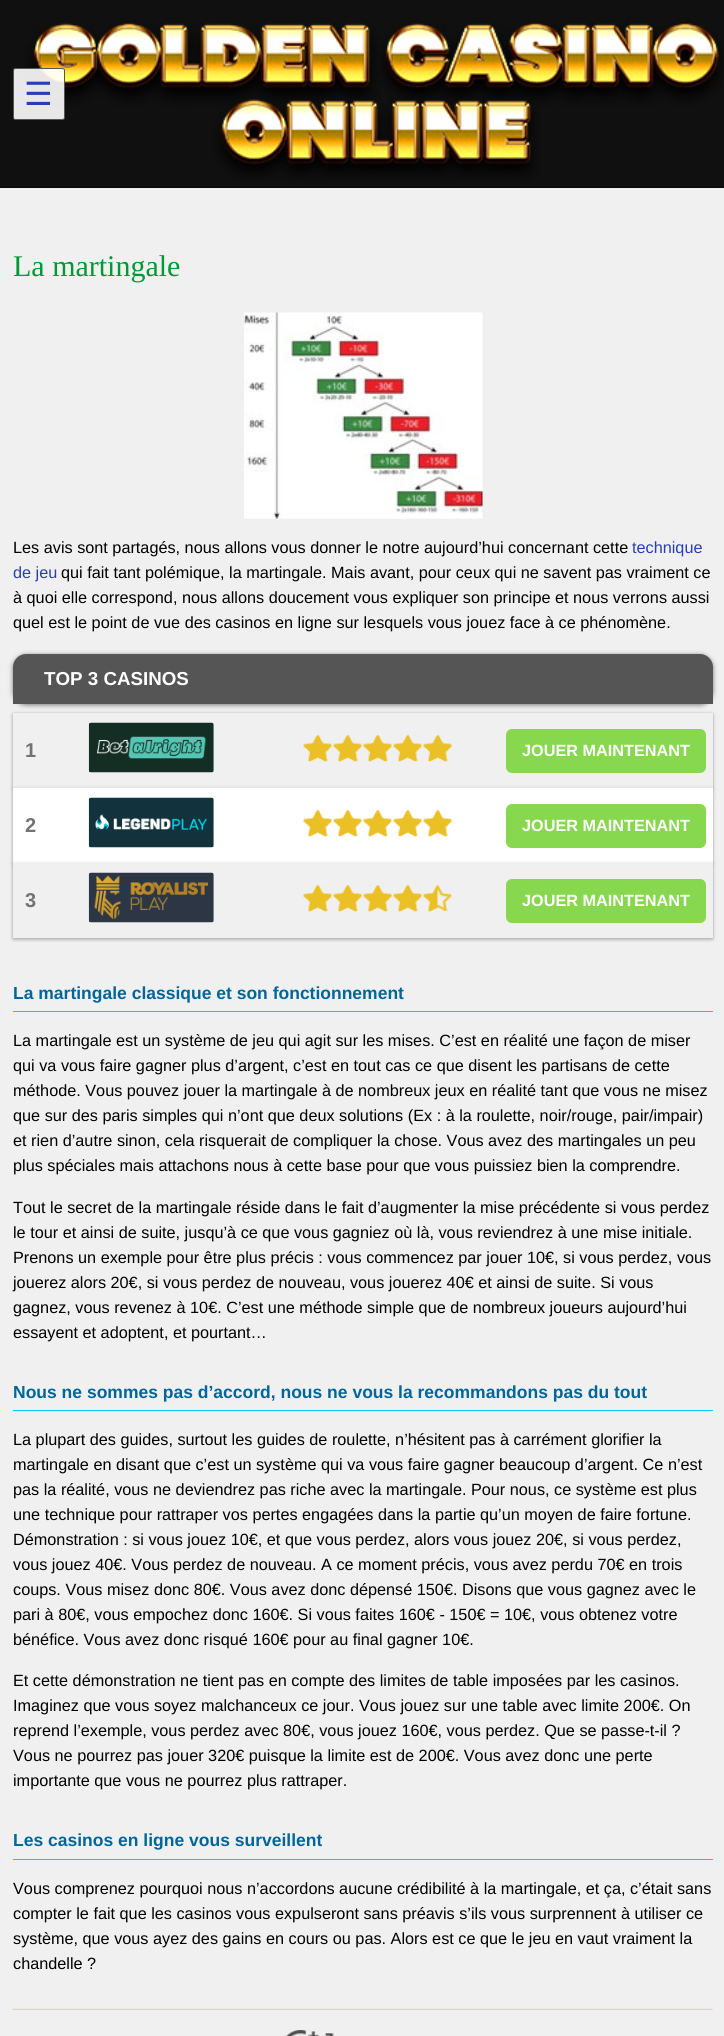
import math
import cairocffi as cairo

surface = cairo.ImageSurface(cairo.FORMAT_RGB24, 724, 2036)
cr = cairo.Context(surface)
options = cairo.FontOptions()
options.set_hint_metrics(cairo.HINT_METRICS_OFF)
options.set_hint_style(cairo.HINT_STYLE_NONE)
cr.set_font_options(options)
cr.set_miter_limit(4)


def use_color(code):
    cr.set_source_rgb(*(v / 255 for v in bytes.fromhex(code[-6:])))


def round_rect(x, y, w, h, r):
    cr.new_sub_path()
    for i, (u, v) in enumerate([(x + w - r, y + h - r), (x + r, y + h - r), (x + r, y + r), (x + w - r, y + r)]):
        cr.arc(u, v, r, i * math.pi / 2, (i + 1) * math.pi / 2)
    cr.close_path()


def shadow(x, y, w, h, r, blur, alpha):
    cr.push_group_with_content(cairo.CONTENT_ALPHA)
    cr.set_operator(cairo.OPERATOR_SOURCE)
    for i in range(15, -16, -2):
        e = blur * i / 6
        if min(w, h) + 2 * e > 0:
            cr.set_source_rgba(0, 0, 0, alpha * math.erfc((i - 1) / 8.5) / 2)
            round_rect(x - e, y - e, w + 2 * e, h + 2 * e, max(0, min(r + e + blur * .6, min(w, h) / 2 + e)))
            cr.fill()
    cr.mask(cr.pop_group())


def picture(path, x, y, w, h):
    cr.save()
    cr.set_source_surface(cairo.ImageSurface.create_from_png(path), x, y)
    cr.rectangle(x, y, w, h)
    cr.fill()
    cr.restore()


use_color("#f0f0f0")
cr.paint()
use_color("#000000")
cr.rectangle(0, 187, 724, 1)
cr.fill()
picture("img1.png", 0, 0, 724, 188)
cr.set_source_rgba(1, 1, 1, 0.9)
round_rect(13.5, 68.5, 51, 51, 2)
cr.fill_preserve()
use_color("#555555")
cr.set_line_width(1)
cr.stroke()
cr.select_font_face("DejaVu Sans")
cr.set_font_size(32)
use_color("#283eb5")
cr.move_to(24, 105)
cr.show_text("☰")
picture("img2.png", 11, 712, 703, 1299)
cr.select_font_face("Liberation Serif")
cr.set_font_size(30)
use_color("#009933")
cr.move_to(13, 276)
cr.show_text("La martingale")
picture("img3.png", 244, 312, 239, 207)
cr.select_font_face("Liberation Sans")
cr.set_font_size(16.25)
use_color("#000000")
cr.move_to(13, 553)
cr.show_text("Les avis sont partagés, nous allons vous donner le notre aujourd’hui concernant cette")
use_color("#283eb5")
cr.move_to(632, 553)
cr.show_text("technique")
cr.move_to(13, 578)
cr.show_text("de jeu")
use_color("#000000")
cr.move_to(61, 578)
cr.show_text("qui fait tant polémique, la martingale. Mais avant, pour ceux qui ne savent pas vraiment ce")
cr.move_to(13, 603)
cr.show_text("à quoi elle correspond, nous allons doucement vous expliquer son principe et nous verrons aussi")
cr.move_to(13, 628)
cr.show_text("quel est le point de vue des casinos en ligne sur lesquels vous jouez face à ce phénomène.")
use_color("#000000")
shadow(13, 655, 700, 50, 13, 2.5, 0.5)
use_color("#555555")
cr.new_path()
cr.move_to(26, 654)
cr.line_to(700, 654)
cr.curve_to(707, 654, 713, 660, 713, 667)
cr.line_to(713, 704)
cr.line_to(13, 704)
cr.line_to(13, 667)
cr.curve_to(13, 660, 19, 654, 26, 654)
cr.close_path()
cr.fill()
cr.select_font_face("Liberation Sans", cairo.FONT_SLANT_NORMAL, cairo.FONT_WEIGHT_BOLD)
cr.set_font_size(18.75)
use_color("#ffffff")
cr.move_to(44, 685)
cr.show_text("TOP 3 CASINOS")
use_color("#000000")
shadow(13, 714, 700, 75, 0, 2, 0.2)
use_color("#f0f0f0")
cr.rectangle(13, 713, 700, 75)
cr.fill()
cr.set_font_size(20)
use_color("#737373")
cr.move_to(25, 757)
cr.show_text("1")
picture("img4.png", 88, 722, 126, 51)
picture("img5.png", 303, 735, 149, 27)
picture("img6.png", 303, 735, 149, 27)
use_color("#87d84f")
round_rect(506, 729, 200, 44, 6)
cr.fill()
cr.set_font_size(16.25)
use_color("#ffffff")
cr.move_to(522, 756)
cr.show_text("JOUER MAINTENANT")
use_color("#000000")
shadow(13, 789, 700, 75, 0, 2, 0.2)
use_color("#ffffff")
cr.rectangle(13, 788, 700, 75)
cr.fill()
cr.set_font_size(20)
use_color("#737373")
cr.move_to(25, 832)
cr.show_text("2")
picture("img7.png", 88, 797, 126, 51)
picture("img8.png", 303, 810, 149, 27)
picture("img9.png", 303, 810, 149, 27)
use_color("#87d84f")
round_rect(506, 804, 200, 44, 6)
cr.fill()
cr.set_font_size(16.25)
use_color("#ffffff")
cr.move_to(522, 831)
cr.show_text("JOUER MAINTENANT")
use_color("#000000")
shadow(13, 864, 700, 75, 0, 2, 0.2)
use_color("#f0f0f0")
cr.rectangle(13, 863, 700, 75)
cr.fill()
cr.set_font_size(20)
use_color("#737373")
cr.move_to(25, 907)
cr.show_text("3")
picture("img10.png", 88, 872, 126, 51)
picture("img11.png", 303, 885, 149, 27)
picture("img12.png", 303, 885, 135, 27)
use_color("#87d84f")
round_rect(506, 879, 200, 44, 6)
cr.fill()
cr.set_font_size(16.25)
use_color("#ffffff")
cr.move_to(522, 906)
cr.show_text("JOUER MAINTENANT")
use_color("#00ccff")
cr.rectangle(13, 1011, 700, 1)
cr.fill()
cr.set_font_size(17.5)
use_color("#006699")
cr.move_to(13, 999)
cr.show_text("La martingale classique et son fonctionnement")
cr.select_font_face("Liberation Sans")
cr.set_font_size(16.25)
use_color("#000000")
cr.move_to(13, 1046)
cr.show_text("La martingale est un système de jeu qui agit sur les mises. C’est en réalité une façon de miser")
cr.move_to(13, 1071)
cr.show_text("qui va vous faire gagner plus d’argent, c’est en tout cas ce que disent les partisans de cette")
cr.move_to(13, 1096)
cr.show_text("méthode. Vous pouvez jouer la martingale à de nombreux jeux en réalité tant que vous ne misez")
cr.move_to(13, 1121)
cr.show_text("que sur des paris simples qui n’ont que deux solutions (Ex : à la roulette, noir/rouge, pair/impair)")
cr.move_to(13, 1146)
cr.show_text("et rien d’autre sinon, cela risquerait de compliquer la chose. Vous avez des martingales un peu")
cr.move_to(13, 1171)
cr.show_text("plus spéciales mais attachons nous à cette base pour que vous puissiez bien la comprendre.")
cr.move_to(13, 1213)
cr.show_text("Tout le secret de la martingale réside dans le fait d’augmenter la mise précédente si vous perdez")
cr.move_to(13, 1238)
cr.show_text("le tour et ainsi de suite, jusqu’à ce que vous gagniez où là, vous reviendrez à une mise initiale.")
cr.move_to(13, 1263)
cr.show_text("Prenons un exemple pour être plus précis : vous commencez par jouer 10€, si vous perdez, vous")
cr.move_to(13, 1288)
cr.show_text("jouerez alors 20€, si vous perdez de nouveau, vous jouerez 40€ et ainsi de suite. Si vous")
cr.move_to(13, 1313)
cr.show_text("gagnez, vous revenez à 10€. C’est une méthode simple que de nombreux joueurs aujourd’hui")
cr.move_to(13, 1338)
cr.show_text("essayent et adoptent, et pourtant…")
use_color("#00ccff")
cr.rectangle(13, 1410, 700, 1)
cr.fill()
cr.select_font_face("Liberation Sans", cairo.FONT_SLANT_NORMAL, cairo.FONT_WEIGHT_BOLD)
cr.set_font_size(17.5)
use_color("#006699")
cr.move_to(13, 1398)
cr.show_text("Nous ne sommes pas d’accord, nous ne vous la recommandons pas du tout")
cr.select_font_face("Liberation Sans")
cr.set_font_size(16.25)
use_color("#000000")
cr.move_to(13, 1445)
cr.show_text("La plupart des guides, surtout les guides de roulette, n’hésitent pas à carrément glorifier la")
cr.move_to(13, 1470)
cr.show_text("martingale en disant que c’est un système qui va vous faire gagner beaucoup d’argent. Ce n’est")
cr.move_to(13, 1495)
cr.show_text("pas la réalité, vous ne deviendrez pas riche avec la martingale. Pour nous, ce système est plus")
cr.move_to(13, 1520)
cr.show_text("une technique pour rattraper vos pertes engagées dans la partie qu’un moyen de faire fortune.")
cr.move_to(13, 1545)
cr.show_text("Démonstration : si vous jouez 10€, et que vous perdez, alors vous jouez 20€, si vous perdez,")
cr.move_to(13, 1570)
cr.show_text("vous jouez 40€. Vous perdez de nouveau. A ce moment précis, vous avez perdu 70€ en trois")
cr.move_to(13, 1595)
cr.show_text("coups. Vous misez donc 80€. Vous avez donc dépensé 150€. Disons que vous gagnez avec le")
cr.move_to(13, 1620)
cr.show_text("pari à 80€, vous empochez donc 160€. Si vous faites 160€ - 150€ = 10€, vous obtenez votre")
cr.move_to(13, 1645)
cr.show_text("bénéfice. Vous avez donc risqué 160€ pour au final gagner 10€.")
cr.move_to(13, 1686)
cr.show_text("Et cette démonstration ne tient pas en compte des limites de table imposées par les casinos.")
cr.move_to(13, 1711)
cr.show_text("Imaginez que vous soyez malchanceux ce jour. Vous jouez sur une table avec limite 200€. On")
cr.move_to(13, 1736)
cr.show_text("reprend l’exemple, vous perdez avec 80€, vous jouez 160€, vous perdez. Que se passe-t-il ?")
cr.move_to(13, 1761)
cr.show_text("Vous ne pourrez pas jouer 320€ puisque la limite est de 200€. Vous avez donc une perte")
cr.move_to(13, 1786)
cr.show_text("importante que vous ne pourrez plus rattraper.")
use_color("#00ccff")
cr.rectangle(13, 1859, 700, 1)
cr.fill()
cr.select_font_face("Liberation Sans", cairo.FONT_SLANT_NORMAL, cairo.FONT_WEIGHT_BOLD)
cr.set_font_size(17.5)
use_color("#006699")
cr.move_to(13, 1846)
cr.show_text("Les casinos en ligne vous surveillent")
cr.select_font_face("Liberation Sans")
cr.set_font_size(16.25)
use_color("#000000")
cr.move_to(13, 1894)
cr.show_text("Vous comprenez pourquoi nous n’accordons aucune crédibilité à la martingale, et ça, c’était sans")
cr.move_to(13, 1919)
cr.show_text("compter le fait que les casinos vous expulseront sans préavis s’ils vous surprennent à utiliser ce")
cr.move_to(13, 1944)
cr.show_text("système, que vous ayez des gains en cours ou pas. Alors est ce que le jeu en vaut vraiment la")
cr.move_to(13, 1969)
cr.show_text("chandelle ?")
picture("img13.png", 285, 2030, 49, 6)
surface.write_to_png("result.png")
